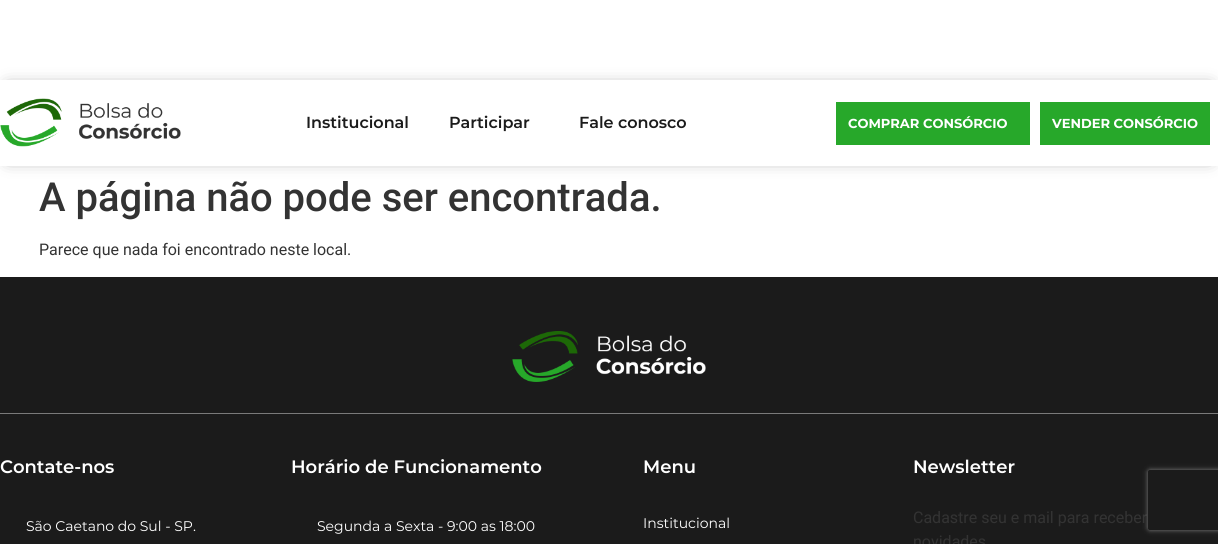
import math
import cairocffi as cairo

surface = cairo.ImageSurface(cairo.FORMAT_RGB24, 1218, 544)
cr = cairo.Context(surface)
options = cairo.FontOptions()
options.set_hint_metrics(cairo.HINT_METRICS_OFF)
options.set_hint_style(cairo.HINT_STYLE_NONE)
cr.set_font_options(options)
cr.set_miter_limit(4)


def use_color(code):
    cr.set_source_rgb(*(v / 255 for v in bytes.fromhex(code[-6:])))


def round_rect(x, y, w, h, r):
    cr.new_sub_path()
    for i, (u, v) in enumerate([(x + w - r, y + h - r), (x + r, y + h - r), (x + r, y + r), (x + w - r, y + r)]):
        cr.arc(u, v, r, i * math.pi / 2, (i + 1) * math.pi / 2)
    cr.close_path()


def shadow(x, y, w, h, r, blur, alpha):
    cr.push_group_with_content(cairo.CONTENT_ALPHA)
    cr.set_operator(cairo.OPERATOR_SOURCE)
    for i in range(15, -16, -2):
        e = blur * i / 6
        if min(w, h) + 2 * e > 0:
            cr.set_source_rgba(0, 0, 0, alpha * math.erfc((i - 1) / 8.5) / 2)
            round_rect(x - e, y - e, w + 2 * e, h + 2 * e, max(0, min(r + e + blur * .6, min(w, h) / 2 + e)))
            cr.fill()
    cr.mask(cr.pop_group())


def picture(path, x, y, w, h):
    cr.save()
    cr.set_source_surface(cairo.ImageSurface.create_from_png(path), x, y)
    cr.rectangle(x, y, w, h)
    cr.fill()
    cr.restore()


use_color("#ffffff")
cr.paint()
cr.save()
cr.set_fill_rule(cairo.FILL_RULE_EVEN_ODD)
cr.new_path()
cr.move_to(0, 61)
cr.line_to(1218, 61)
cr.line_to(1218, 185)
cr.line_to(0, 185)
cr.close_path()
cr.move_to(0, 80)
cr.line_to(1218, 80)
cr.line_to(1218, 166)
cr.line_to(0, 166)
cr.close_path()
cr.clip()
use_color("#000000")
shadow(8, 88, 1202, 70, 0, 8.5, 0.5)
cr.restore()
picture("img1.png", 0, 98, 181, 49)
cr.select_font_face("Montserrat SemiBold")
cr.set_font_size(16)
use_color("#1b1b1b")
cr.move_to(306, 128)
cr.show_text("Institucional")
cr.move_to(449, 128)
cr.show_text("Participar")
cr.move_to(579, 128)
cr.show_text("Fale conosco")
use_color("#27a82a")
cr.rectangle(836, 102, 194, 43)
cr.fill()
cr.select_font_face("Montserrat", cairo.FONT_SLANT_NORMAL, cairo.FONT_WEIGHT_BOLD)
cr.set_font_size(13)
use_color("#ffffff")
cr.move_to(848, 128)
cr.show_text("COMPRAR CONSÓRCIO")
use_color("#27a82a")
cr.rectangle(1040, 102, 170, 43)
cr.fill()
use_color("#ffffff")
cr.move_to(1052, 128)
cr.show_text("VENDER CONSÓRCIO")
cr.select_font_face("Roboto Medium")
cr.set_font_size(40)
use_color("#333333")
cr.move_to(39, 211)
cr.show_text("A página não pode ser encontrada.")
cr.select_font_face("Roboto")
cr.set_font_size(16)
cr.move_to(39, 255)
cr.show_text("Parece que nada foi encontrado neste local.")
use_color("#1b1b1b")
cr.rectangle(0, 277, 1218, 267)
cr.fill()
use_color("#7a7a7a")
cr.rectangle(0, 413, 1218, 1)
cr.fill()
picture("img2.png", 512, 331, 194, 51)
cr.select_font_face("Montserrat SemiBold")
cr.set_font_size(18)
use_color("#ffffff")
cr.move_to(0, 473)
cr.show_text("Contate-nos")
cr.select_font_face("Montserrat")
cr.set_font_size(14)
cr.move_to(26, 531)
cr.show_text("São Caetano do Sul - SP.")
cr.select_font_face("Montserrat SemiBold")
cr.set_font_size(18)
cr.move_to(291, 473)
cr.show_text("Horário de Funcionamento")
cr.select_font_face("Montserrat")
cr.set_font_size(14)
cr.move_to(317, 531)
cr.show_text("Segunda a Sexta - 9:00 as 18:00")
cr.select_font_face("Montserrat SemiBold")
cr.set_font_size(18)
cr.move_to(643, 473)
cr.show_text("Menu")
cr.select_font_face("Montserrat")
cr.set_font_size(14)
cr.move_to(643, 528)
cr.show_text("Institucional")
cr.select_font_face("Montserrat SemiBold")
cr.set_font_size(18)
cr.move_to(913, 473)
cr.show_text("Newsletter")
cr.select_font_face("Roboto")
cr.set_font_size(16)
use_color("#333333")
cr.move_to(913, 523)
cr.show_text("Cadastre seu e mail para receber")
cr.move_to(913, 547)
cr.show_text("novidades")
cr.save()
cr.set_fill_rule(cairo.FILL_RULE_EVEN_ODD)
cr.new_path()
cr.move_to(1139, 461)
cr.line_to(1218, 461)
cr.line_to(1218, 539)
cr.line_to(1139, 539)
cr.close_path()
cr.move_to(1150, 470)
cr.line_to(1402, 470)
cr.curve_to(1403, 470, 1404, 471, 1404, 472)
cr.line_to(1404, 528)
cr.curve_to(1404, 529, 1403, 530, 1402, 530)
cr.line_to(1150, 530)
cr.curve_to(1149, 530, 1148, 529, 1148, 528)
cr.line_to(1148, 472)
cr.curve_to(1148, 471, 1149, 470, 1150, 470)
cr.close_path()
cr.clip()
use_color("#808080")
shadow(1148, 470, 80, 60, 2, 2.5, 1)
cr.restore()
surface.write_to_png("result.png")
